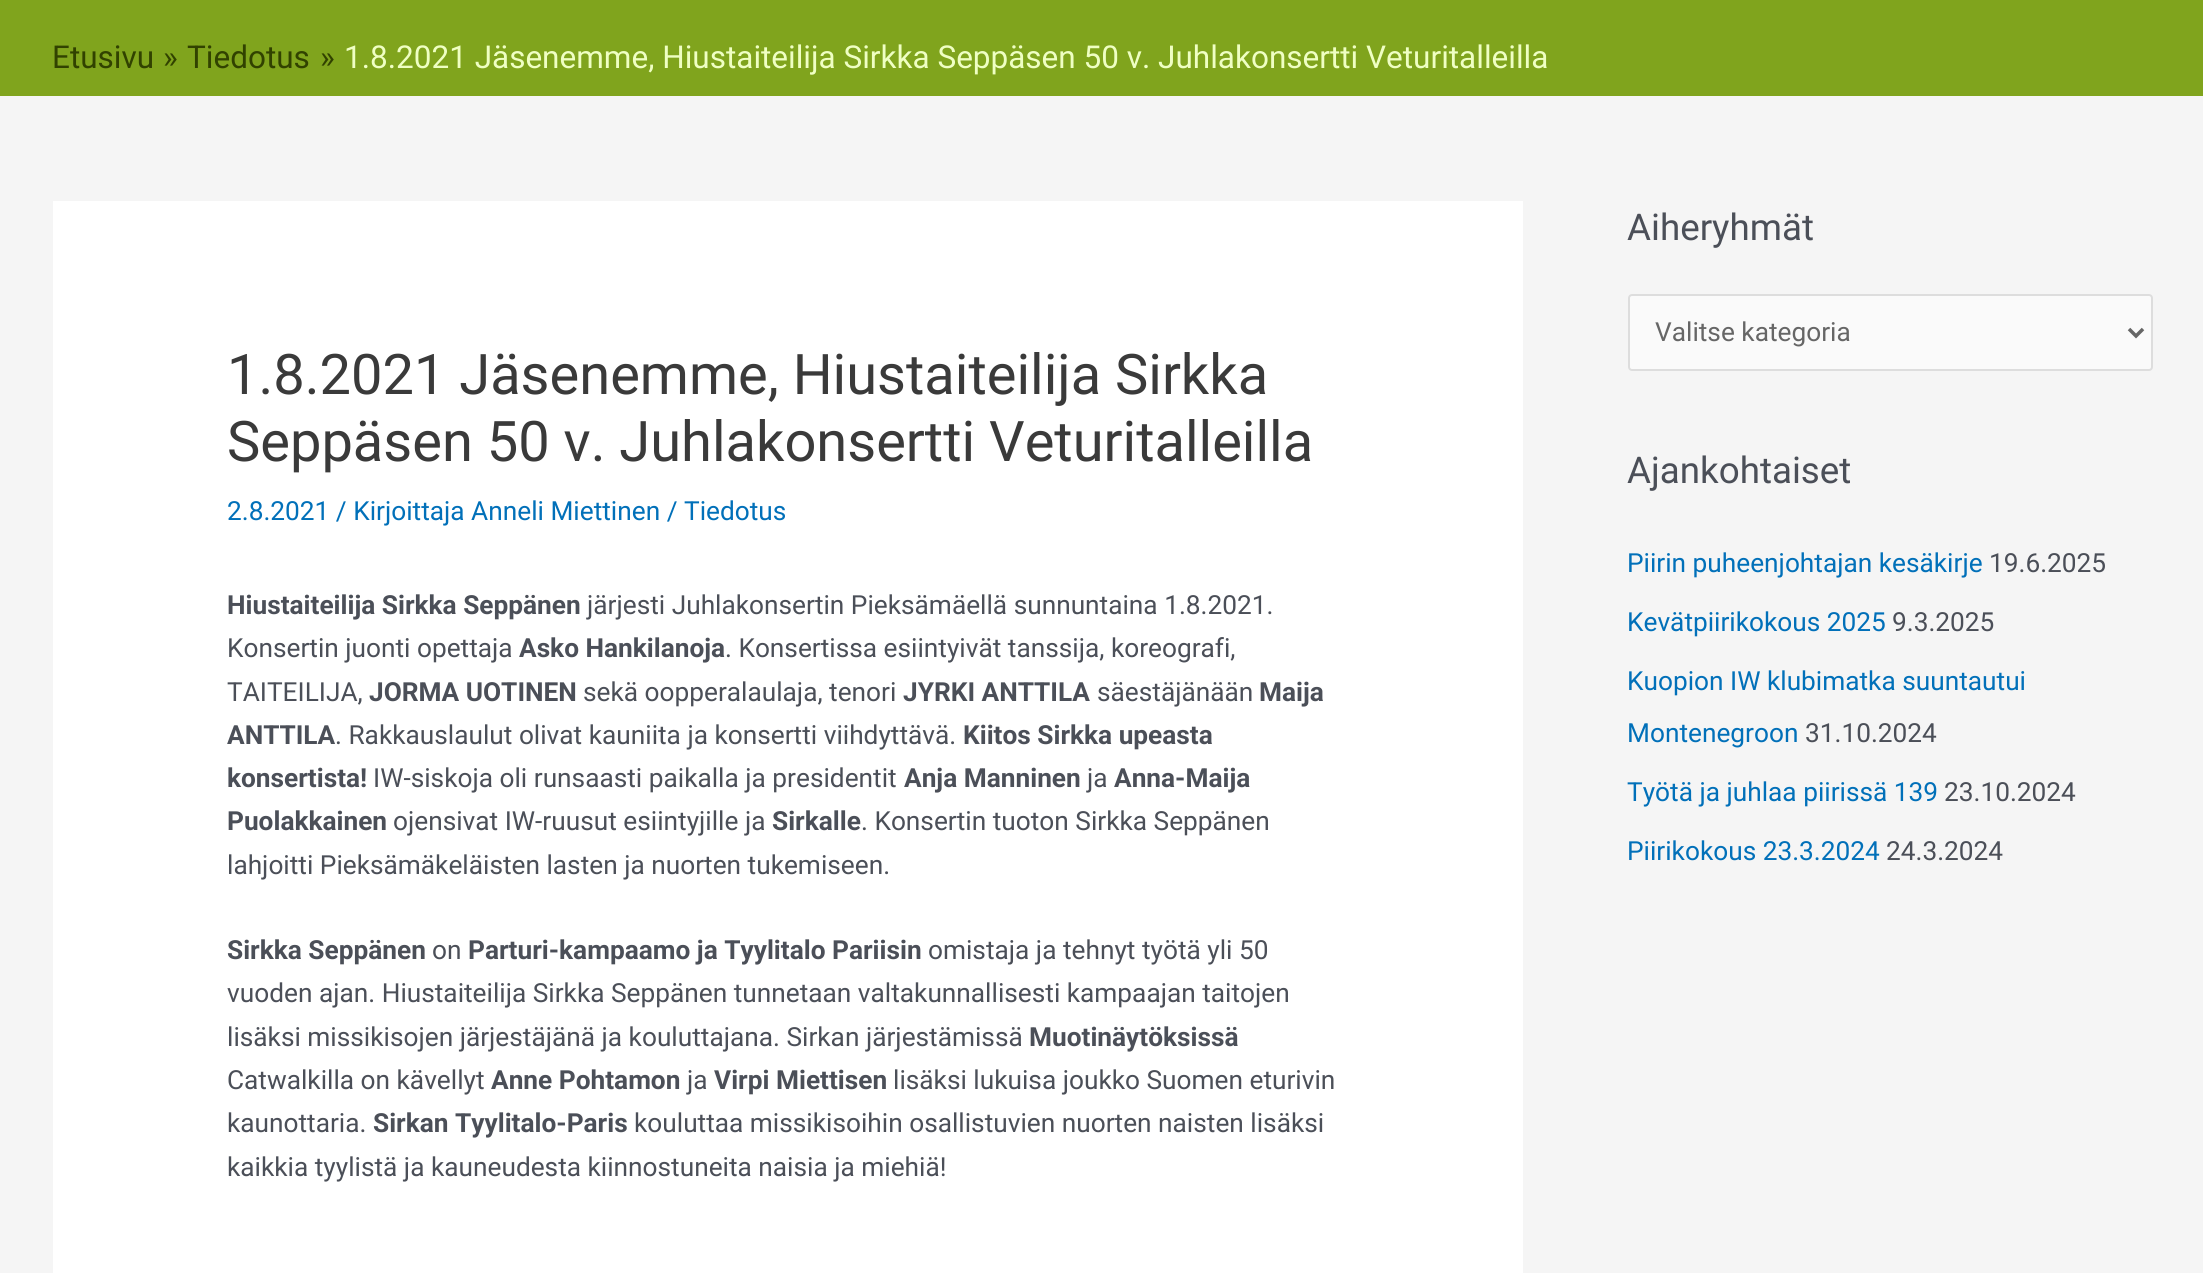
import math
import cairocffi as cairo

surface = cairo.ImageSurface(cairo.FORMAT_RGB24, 2203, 1273)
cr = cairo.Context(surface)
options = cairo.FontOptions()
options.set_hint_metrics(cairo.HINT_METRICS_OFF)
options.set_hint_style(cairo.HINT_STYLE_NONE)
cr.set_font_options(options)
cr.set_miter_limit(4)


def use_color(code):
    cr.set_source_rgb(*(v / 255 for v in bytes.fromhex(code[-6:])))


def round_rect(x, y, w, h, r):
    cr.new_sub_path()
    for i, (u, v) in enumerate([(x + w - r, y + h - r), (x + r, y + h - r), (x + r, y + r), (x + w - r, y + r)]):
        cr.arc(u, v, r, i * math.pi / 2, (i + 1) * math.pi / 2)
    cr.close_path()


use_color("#f5f5f5")
cr.paint()
use_color("#80a41d")
cr.rectangle(0, 0, 2203, 96)
cr.fill()
cr.select_font_face("Roboto")
cr.set_font_size(31.5)
use_color("#314200")
cr.move_to(52, 68)
cr.show_text("Etusivu")
cr.move_to(163, 68)
cr.show_text("»")
cr.move_to(187, 68)
cr.show_text("Tiedotus")
cr.move_to(320, 68)
cr.show_text("»")
use_color("#efffc3")
cr.move_to(344, 68)
cr.show_text("1.8.2021 Jäsenemme, Hiustaiteilija Sirkka Seppäsen 50 v. Juhlakonsertti Veturitalleilla")
use_color("#ffffff")
cr.rectangle(53, 201, 1470, 1072)
cr.fill()
cr.set_font_size(56)
use_color("#3a3a3a")
cr.move_to(227, 394)
cr.show_text("1.8.2021 Jäsenemme, Hiustaiteilija Sirkka")
cr.move_to(227, 461)
cr.show_text("Seppäsen 50 v. Juhlakonsertti Veturitalleilla")
cr.set_font_size(26.25)
use_color("#0170b9")
cr.move_to(227, 520)
cr.show_text("2.8.2021 / Kirjoittaja Anneli Miettinen / Tiedotus")
cr.select_font_face("Roboto", cairo.FONT_SLANT_NORMAL, cairo.FONT_WEIGHT_BOLD)
use_color("#4b4f58")
cr.move_to(227, 614)
cr.show_text("Hiustaiteilija Sirkka Seppänen")
cr.select_font_face("Roboto")
cr.move_to(587, 614)
cr.show_text("järjesti Juhlakonsertin Pieksämäellä sunnuntaina 1.8.2021.")
cr.move_to(227, 657)
cr.show_text("Konsertin juonti opettaja")
cr.select_font_face("Roboto", cairo.FONT_SLANT_NORMAL, cairo.FONT_WEIGHT_BOLD)
cr.move_to(519, 657)
cr.show_text("Asko Hankilanoja")
cr.select_font_face("Roboto")
cr.move_to(725, 657)
cr.show_text(". Konsertissa esiintyivät tanssija, koreografi,")
cr.move_to(227, 701)
cr.show_text("TAITEILIJA,")
cr.select_font_face("Roboto", cairo.FONT_SLANT_NORMAL, cairo.FONT_WEIGHT_BOLD)
cr.move_to(369, 701)
cr.show_text("JORMA UOTINEN")
cr.select_font_face("Roboto")
cr.move_to(583, 701)
cr.show_text("sekä oopperalaulaja, tenori")
cr.select_font_face("Roboto", cairo.FONT_SLANT_NORMAL, cairo.FONT_WEIGHT_BOLD)
cr.move_to(903, 701)
cr.show_text("JYRKI ANTTILA")
cr.select_font_face("Roboto")
cr.move_to(1097, 701)
cr.show_text("säestäjänään")
cr.select_font_face("Roboto", cairo.FONT_SLANT_NORMAL, cairo.FONT_WEIGHT_BOLD)
cr.move_to(1259, 701)
cr.show_text("Maija")
cr.move_to(227, 744)
cr.show_text("ANTTILA")
cr.select_font_face("Roboto")
cr.move_to(335, 744)
cr.show_text(". Rakkauslaulut olivat kauniita ja konsertti viihdyttävä.")
cr.select_font_face("Roboto", cairo.FONT_SLANT_NORMAL, cairo.FONT_WEIGHT_BOLD)
cr.move_to(963, 744)
cr.show_text("Kiitos Sirkka upeasta")
cr.move_to(227, 787)
cr.show_text("konsertista!")
cr.select_font_face("Roboto")
cr.move_to(373, 787)
cr.show_text("IW-siskoja oli runsaasti paikalla ja presidentit")
cr.select_font_face("Roboto", cairo.FONT_SLANT_NORMAL, cairo.FONT_WEIGHT_BOLD)
cr.move_to(904, 787)
cr.show_text("Anja Manninen")
cr.select_font_face("Roboto")
cr.move_to(1087, 787)
cr.show_text("ja")
cr.select_font_face("Roboto", cairo.FONT_SLANT_NORMAL, cairo.FONT_WEIGHT_BOLD)
cr.move_to(1114, 787)
cr.show_text("Anna-Maija")
cr.move_to(227, 830)
cr.show_text("Puolakkainen")
cr.select_font_face("Roboto")
cr.move_to(393, 830)
cr.show_text("ojensivat IW-ruusut esiintyjille ja")
cr.select_font_face("Roboto", cairo.FONT_SLANT_NORMAL, cairo.FONT_WEIGHT_BOLD)
cr.move_to(772, 830)
cr.show_text("Sirkalle")
cr.select_font_face("Roboto")
cr.move_to(861, 830)
cr.show_text(". Konsertin tuoton Sirkka Seppänen")
cr.move_to(227, 874)
cr.show_text("lahjoitti Pieksämäkeläisten lasten ja nuorten tukemiseen.")
cr.select_font_face("Roboto", cairo.FONT_SLANT_NORMAL, cairo.FONT_WEIGHT_BOLD)
cr.move_to(227, 959)
cr.show_text("Sirkka Seppänen")
cr.select_font_face("Roboto")
cr.move_to(432, 959)
cr.show_text("on")
cr.select_font_face("Roboto", cairo.FONT_SLANT_NORMAL, cairo.FONT_WEIGHT_BOLD)
cr.move_to(468, 959)
cr.show_text("Parturi-kampaamo ja Tyylitalo Pariisin")
cr.select_font_face("Roboto")
cr.move_to(928, 959)
cr.show_text("omistaja ja tehnyt työtä yli 50")
cr.move_to(227, 1002)
cr.show_text("vuoden ajan. Hiustaiteilija Sirkka Seppänen tunnetaan valtakunnallisesti kampaajan taitojen")
cr.move_to(227, 1046)
cr.show_text("lisäksi missikisojen järjestäjänä ja kouluttajana. Sirkan järjestämissä")
cr.select_font_face("Roboto", cairo.FONT_SLANT_NORMAL, cairo.FONT_WEIGHT_BOLD)
cr.move_to(1029, 1046)
cr.show_text("Muotinäytöksissä")
cr.select_font_face("Roboto")
cr.move_to(227, 1089)
cr.show_text("Catwalkilla on kävellyt")
cr.select_font_face("Roboto", cairo.FONT_SLANT_NORMAL, cairo.FONT_WEIGHT_BOLD)
cr.move_to(491, 1089)
cr.show_text("Anne Pohtamon")
cr.select_font_face("Roboto")
cr.move_to(687, 1089)
cr.show_text("ja")
cr.select_font_face("Roboto", cairo.FONT_SLANT_NORMAL, cairo.FONT_WEIGHT_BOLD)
cr.move_to(714, 1089)
cr.show_text("Virpi Miettisen")
cr.select_font_face("Roboto")
cr.move_to(893, 1089)
cr.show_text("lisäksi lukuisa joukko Suomen eturivin")
cr.move_to(227, 1132)
cr.show_text("kaunottaria.")
cr.select_font_face("Roboto", cairo.FONT_SLANT_NORMAL, cairo.FONT_WEIGHT_BOLD)
cr.move_to(373, 1132)
cr.show_text("Sirkan Tyylitalo-Paris")
cr.select_font_face("Roboto")
cr.move_to(634, 1132)
cr.show_text("kouluttaa missikisoihin osallistuvien nuorten naisten lisäksi")
cr.move_to(227, 1176)
cr.show_text("kaikkia tyylistä ja kauneudesta kiinnostuneita naisia ja miehiä!")
cr.set_font_size(36.75)
cr.move_to(1627, 240)
cr.show_text("Aiheryhmät")
use_color("#fafafa")
round_rect(1629, 295, 523, 75, 3)
cr.fill_preserve()
use_color("#dddddd")
cr.stroke()
cr.new_path()
cr.move_to(2129, 329)
cr.line_to(2136, 336)
cr.line_to(2143, 329)
use_color("#666666")
cr.set_line_width(3.5)
cr.stroke()
cr.set_font_size(26.25)
cr.move_to(1655, 341)
cr.show_text("Valitse kategoria")
cr.set_font_size(36.75)
use_color("#4b4f58")
cr.move_to(1627, 483)
cr.show_text("Ajankohtaiset")
cr.set_font_size(26.25)
use_color("#0170b9")
cr.move_to(1627, 572)
cr.show_text("Piirin puheenjohtajan kesäkirje")
use_color("#4b4f58")
cr.move_to(1989, 572)
cr.show_text("19.6.2025")
use_color("#0170b9")
cr.move_to(1627, 631)
cr.show_text("Kevätpiirikokous 2025")
use_color("#4b4f58")
cr.move_to(1892, 631)
cr.show_text("9.3.2025")
use_color("#0170b9")
cr.move_to(1627, 690)
cr.show_text("Kuopion IW klubimatka suuntautui")
cr.move_to(1627, 742)
cr.show_text("Montenegroon")
use_color("#4b4f58")
cr.move_to(1805, 742)
cr.show_text("31.10.2024")
use_color("#0170b9")
cr.move_to(1627, 801)
cr.show_text("Työtä ja juhlaa piirissä 139")
use_color("#4b4f58")
cr.move_to(1944, 801)
cr.show_text("23.10.2024")
use_color("#0170b9")
cr.move_to(1627, 860)
cr.show_text("Piirikokous 23.3.2024")
use_color("#4b4f58")
cr.move_to(1886, 860)
cr.show_text("24.3.2024")
surface.write_to_png("result.png")
